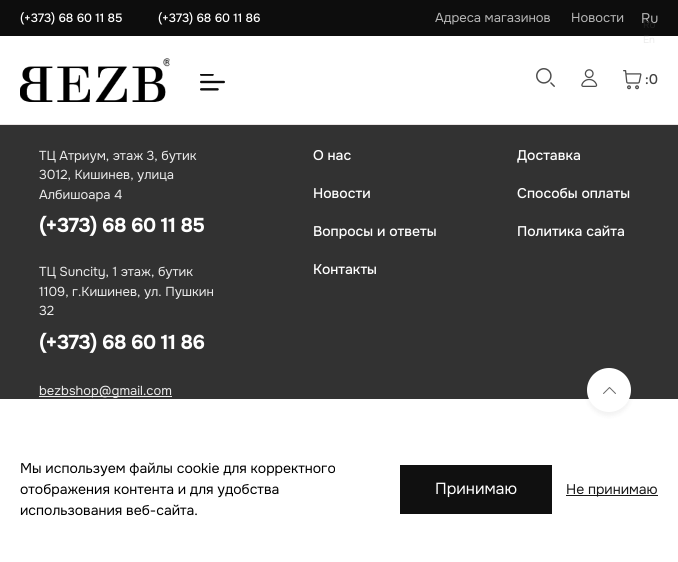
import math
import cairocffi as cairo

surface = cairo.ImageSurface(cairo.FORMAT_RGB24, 678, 562)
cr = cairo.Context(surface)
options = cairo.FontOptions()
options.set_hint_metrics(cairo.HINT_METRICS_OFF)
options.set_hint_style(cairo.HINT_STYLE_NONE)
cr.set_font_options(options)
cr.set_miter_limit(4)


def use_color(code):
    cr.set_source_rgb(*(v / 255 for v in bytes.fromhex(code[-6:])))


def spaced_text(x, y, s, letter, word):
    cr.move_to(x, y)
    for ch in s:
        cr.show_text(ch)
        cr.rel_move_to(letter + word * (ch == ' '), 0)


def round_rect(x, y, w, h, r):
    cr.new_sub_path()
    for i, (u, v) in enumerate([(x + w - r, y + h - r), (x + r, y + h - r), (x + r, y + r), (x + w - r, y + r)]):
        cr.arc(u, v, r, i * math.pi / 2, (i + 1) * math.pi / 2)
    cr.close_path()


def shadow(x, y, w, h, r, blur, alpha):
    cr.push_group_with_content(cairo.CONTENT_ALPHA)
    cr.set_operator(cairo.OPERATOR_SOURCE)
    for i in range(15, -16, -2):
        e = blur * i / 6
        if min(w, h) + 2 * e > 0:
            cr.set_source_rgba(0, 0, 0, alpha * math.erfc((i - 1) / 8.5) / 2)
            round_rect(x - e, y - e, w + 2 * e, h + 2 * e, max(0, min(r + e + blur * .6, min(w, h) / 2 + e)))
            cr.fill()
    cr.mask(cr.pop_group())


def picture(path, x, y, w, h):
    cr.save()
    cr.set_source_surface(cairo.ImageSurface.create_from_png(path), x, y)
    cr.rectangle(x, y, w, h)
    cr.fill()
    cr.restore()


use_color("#323232")
cr.paint()
use_color("#eae5e5")
cr.rectangle(0, 124, 678, 1)
cr.fill()
use_color("#0d0d0d")
cr.rectangle(0, 0, 678, 36)
cr.fill()
cr.select_font_face("Onest Medium")
cr.set_font_size(12)
use_color("#ffffff")
cr.move_to(20, 22)
cr.show_text("(+373) 68 60 11 85")
cr.move_to(158, 22)
cr.show_text("(+373) 68 60 11 86")
cr.select_font_face("Onest")
cr.set_font_size(13)
use_color("#b6b6b6")
cr.move_to(435, 22)
cr.show_text("Адреса магазинов")
cr.move_to(571, 22)
cr.show_text("Новости")
cr.set_font_size(14)
cr.move_to(641, 23)
cr.show_text("Ru")
cr.set_font_size(10)
use_color("#202020")
cr.move_to(643, 28)
cr.show_text("Ro")
use_color("#ffffff")
cr.rectangle(0, 36, 678, 88)
cr.fill()
use_color("#ebebeb")
cr.move_to(643, 43)
cr.show_text("En")
picture("img1.png", 20, 58, 150, 44)
picture("img2.png", 200, 74, 25, 17)
picture("img3.png", 536, 68, 19, 19)
picture("img4.png", 581, 69, 17, 18)
picture("img5.png", 623, 70, 19, 20)
cr.select_font_face("Onest Medium")
cr.set_font_size(14)
use_color("#414141")
cr.move_to(645, 84)
cr.show_text(":0")
cr.select_font_face("Onest")
cr.set_font_size(13)
use_color("#ebebeb")
cr.move_to(39, 160)
cr.show_text("ТЦ Атриум, этаж 3, бутик")
cr.move_to(39, 179)
cr.show_text("3012, Кишинев, улица")
cr.move_to(39, 199)
cr.show_text("Албишоара 4")
cr.select_font_face("Onest", cairo.FONT_SLANT_NORMAL, cairo.FONT_WEIGHT_BOLD)
cr.set_font_size(20)
use_color("#ffffff")
spaced_text(39, 232, "(+373) 68 60 11 85", -0.5, 0)
cr.select_font_face("Onest")
cr.set_font_size(13)
use_color("#ebebeb")
cr.move_to(39, 276)
cr.show_text("ТЦ Suncity, 1 этаж, бутик")
cr.move_to(39, 296)
cr.show_text("1109, г.Кишинев, ул. Пушкин")
cr.move_to(39, 315)
cr.show_text("32")
cr.select_font_face("Onest", cairo.FONT_SLANT_NORMAL, cairo.FONT_WEIGHT_BOLD)
cr.set_font_size(20)
use_color("#ffffff")
spaced_text(39, 349, "(+373) 68 60 11 86", -0.5, 0)
use_color("#ebebeb")
cr.rectangle(39, 396, 133, 1)
cr.fill()
cr.select_font_face("Onest")
cr.set_font_size(13)
cr.move_to(39, 395)
cr.show_text("bezbshop@gmail.com")
cr.select_font_face("Onest Medium")
cr.set_font_size(14)
use_color("#ffffff")
cr.move_to(313, 160)
cr.show_text("О нас")
cr.move_to(313, 198)
cr.show_text("Новости")
cr.move_to(313, 236)
cr.show_text("Вопросы и ответы")
cr.move_to(313, 274)
cr.show_text("Контакты")
cr.move_to(517, 160)
cr.show_text("Доставка")
cr.move_to(517, 198)
cr.show_text("Способы оплаты")
cr.move_to(517, 236)
cr.show_text("Политика сайта")
cr.rectangle(0, 399, 678, 163)
cr.fill()
use_color("#000000")
shadow(587, 372, 44, 44, 22, 2, 0.05)
use_color("#ffffff")
cr.arc(609, 390, 22, 0, 2 * math.pi)
cr.fill()
picture("img6.png", 603, 387, 13, 7)
cr.select_font_face("Onest")
use_color("#000000")
cr.move_to(20, 473)
cr.show_text("Мы используем файлы cookie для корректного")
cr.move_to(20, 494)
cr.show_text("отображения контента и для удобства")
cr.move_to(20, 515)
cr.show_text("использования веб-сайта.")
use_color("#101010")
cr.rectangle(400, 465, 152, 49)
cr.fill()
cr.set_font_size(16)
use_color("#ffffff")
cr.move_to(435, 494)
cr.show_text("Принимаю")
use_color("#181818")
cr.rectangle(566, 495, 92, 1)
cr.fill()
cr.set_font_size(14)
cr.move_to(566, 494)
cr.show_text("Не принимаю")
surface.write_to_png("result.png")
